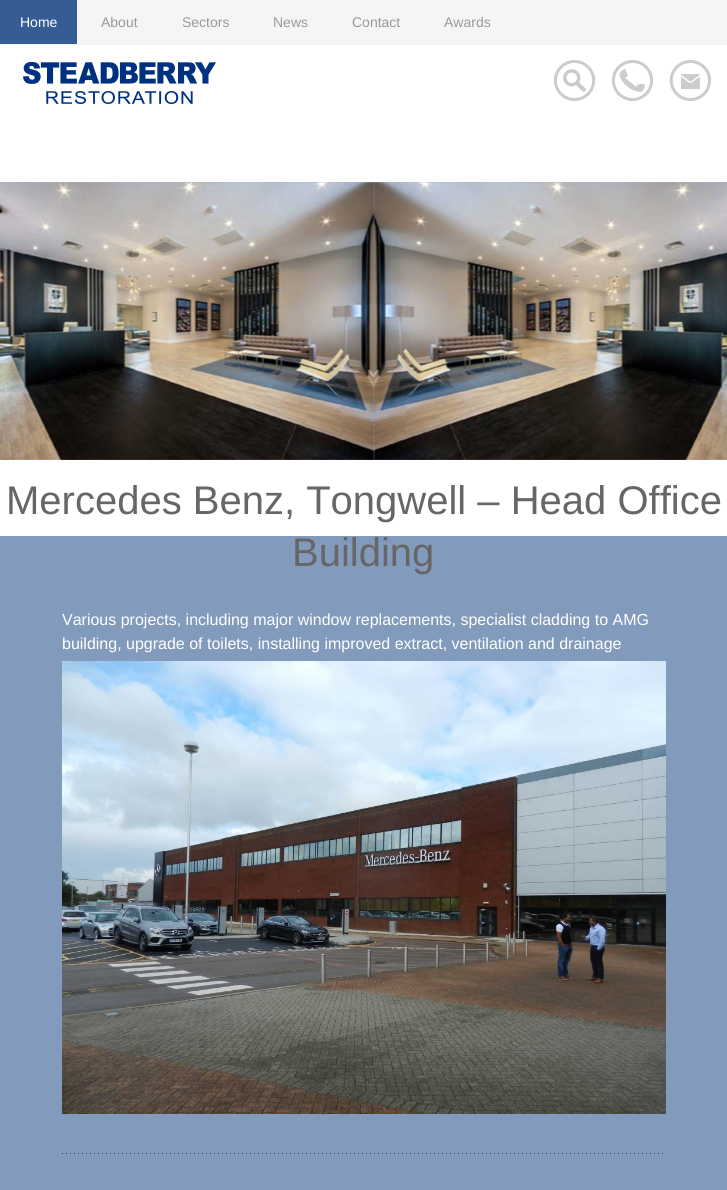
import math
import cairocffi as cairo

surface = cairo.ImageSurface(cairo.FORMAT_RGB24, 727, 1190)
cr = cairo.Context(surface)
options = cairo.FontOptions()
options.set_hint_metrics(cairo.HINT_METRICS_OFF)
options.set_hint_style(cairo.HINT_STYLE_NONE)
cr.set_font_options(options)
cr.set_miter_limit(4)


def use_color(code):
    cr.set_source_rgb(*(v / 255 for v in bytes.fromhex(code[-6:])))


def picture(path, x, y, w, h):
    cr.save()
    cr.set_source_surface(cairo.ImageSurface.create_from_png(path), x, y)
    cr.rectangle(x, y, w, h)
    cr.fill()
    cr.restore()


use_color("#ffffff")
cr.paint()
use_color("#f5f5f5")
cr.rectangle(0, 0, 727, 45)
cr.fill()
use_color("#365d93")
cr.rectangle(0, 0, 77, 44)
cr.fill()
cr.select_font_face("Liberation Sans")
cr.set_font_size(14)
use_color("#ffffff")
cr.move_to(20, 27)
cr.show_text("Home")
use_color("#999999")
cr.move_to(101, 27)
cr.show_text("About")
cr.move_to(182, 27)
cr.show_text("Sectors")
cr.move_to(273, 27)
cr.show_text("News")
cr.move_to(352, 27)
cr.show_text("Contact")
cr.move_to(444, 27)
cr.show_text("Awards")
picture("img1.png", 23, 62, 193, 42)
picture("img2.png", 553, 59, 43, 43)
picture("img3.png", 611, 60, 43, 41)
picture("img4.png", 669, 60, 42, 41)
picture("img5.png", 0, 182, 727, 278)
use_color("#829bbd")
cr.rectangle(0, 536, 727, 654)
cr.fill()
cr.set_font_size(40)
use_color("#666666")
cr.move_to(6, 514)
cr.show_text("Mercedes Benz, Tongwell – Head Office")
cr.move_to(292, 566)
cr.show_text("Building")
cr.set_font_size(16)
use_color("#ffffff")
cr.move_to(62, 625)
cr.show_text("Various projects, including major window replacements, specialist cladding to AMG")
cr.move_to(62, 649)
cr.show_text("building, upgrade of toilets, installing improved extract, ventilation and drainage")
picture("img6.png", 62, 661, 604, 453)
picture("img7.png", 62, 1153, 601, 1)
surface.write_to_png("result.png")
